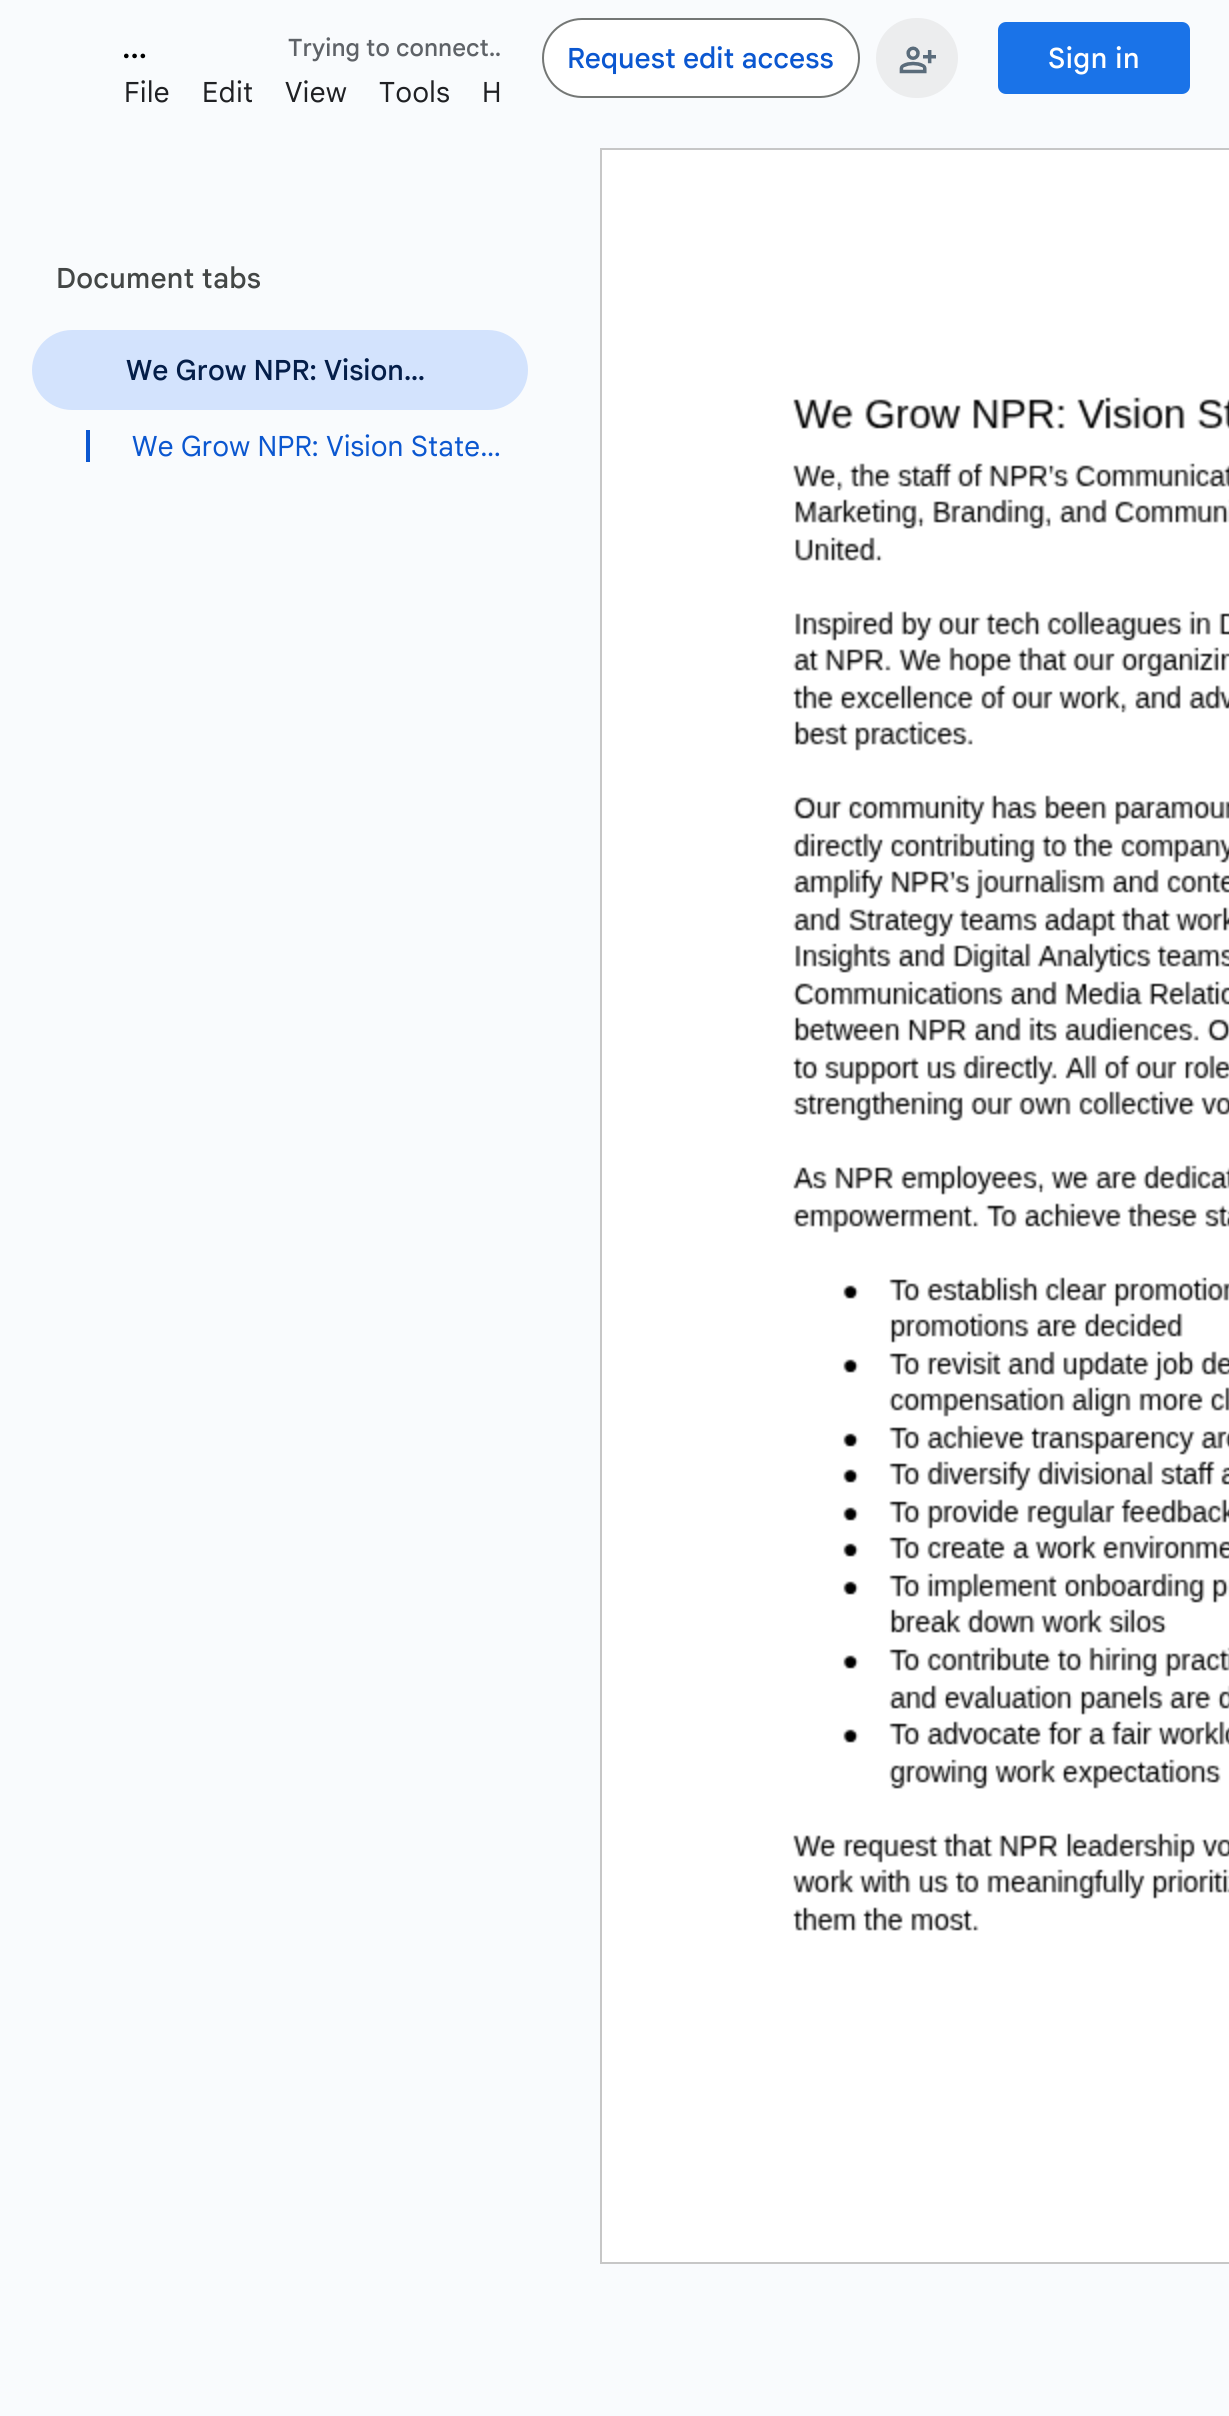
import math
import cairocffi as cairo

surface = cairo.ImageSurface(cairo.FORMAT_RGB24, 1229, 2416)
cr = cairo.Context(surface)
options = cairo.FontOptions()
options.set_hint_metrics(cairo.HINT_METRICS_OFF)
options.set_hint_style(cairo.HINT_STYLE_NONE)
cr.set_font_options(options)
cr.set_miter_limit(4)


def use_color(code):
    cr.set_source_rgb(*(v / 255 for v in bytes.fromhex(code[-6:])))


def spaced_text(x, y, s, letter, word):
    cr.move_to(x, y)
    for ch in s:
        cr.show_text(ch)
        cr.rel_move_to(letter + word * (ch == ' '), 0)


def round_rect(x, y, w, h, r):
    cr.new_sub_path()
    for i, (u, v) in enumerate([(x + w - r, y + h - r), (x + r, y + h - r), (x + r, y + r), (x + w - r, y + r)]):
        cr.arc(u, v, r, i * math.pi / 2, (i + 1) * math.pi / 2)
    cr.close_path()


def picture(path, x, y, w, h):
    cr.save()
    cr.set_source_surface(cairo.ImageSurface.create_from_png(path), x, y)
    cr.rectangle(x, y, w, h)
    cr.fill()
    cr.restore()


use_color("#f9fbfd")
cr.paint()
cr.select_font_face("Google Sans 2")
cr.set_font_size(36)
use_color("#000000")
cr.move_to(122, 58)
cr.show_text("…")
cr.select_font_face("Google Sans Medium")
cr.set_font_size(24)
use_color("#5f6368")
cr.move_to(288, 56)
cr.show_text("Trying to connect…")
use_color("#f9fbfd")
cr.rectangle(502, 52, 4, 5)
cr.fill()
use_color("#ffffff")
round_rect(543, 19, 316, 78, 39)
cr.fill_preserve()
use_color("#747775")
cr.stroke()
cr.set_font_size(28)
use_color("#0b57d0")
cr.move_to(567, 68)
cr.show_text("Request edit access")
use_color("#ecedee")
round_rect(876, 18, 82, 80, 40)
cr.fill()
picture("img1.png", 899, 46, 37, 28)
use_color("#1a73e8")
round_rect(998, 22, 192, 72, 8)
cr.fill()
use_color("#ffffff")
spaced_text(1048, 68, "Sign in", 0.5, 0)
cr.select_font_face("Google Sans")
use_color("#202124")
spaced_text(124, 102, "File", 0.5, 0)
spaced_text(202, 102, "Edit", 0.5, 0)
spaced_text(285, 102, "View", 0.5, 0)
spaced_text(379, 102, "Tools", 0.5, 0)
spaced_text(482, 102, "H", 0.5, 0)
cr.select_font_face("Google Sans Medium")
use_color("#444746")
spaced_text(56, 288, "Document tabs", 0.2, 0)
use_color("#d3e3fd")
round_rect(32, 330, 496, 80, 40)
cr.fill()
use_color("#041e49")
cr.move_to(126, 380)
cr.show_text("We Grow NPR: Vision…")
use_color("#0b57d0")
cr.rectangle(86, 430, 4, 32)
cr.fill()
cr.select_font_face("Google Sans")
spaced_text(132, 456, "We Grow NPR: Vision State…", 0.2, 0)
cr.rectangle(601, 149, 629, 2114)
use_color("#c7c7c7")
cr.stroke()
picture("img2.png", 602, 150, 627, 2112)
surface.write_to_png("result.png")
